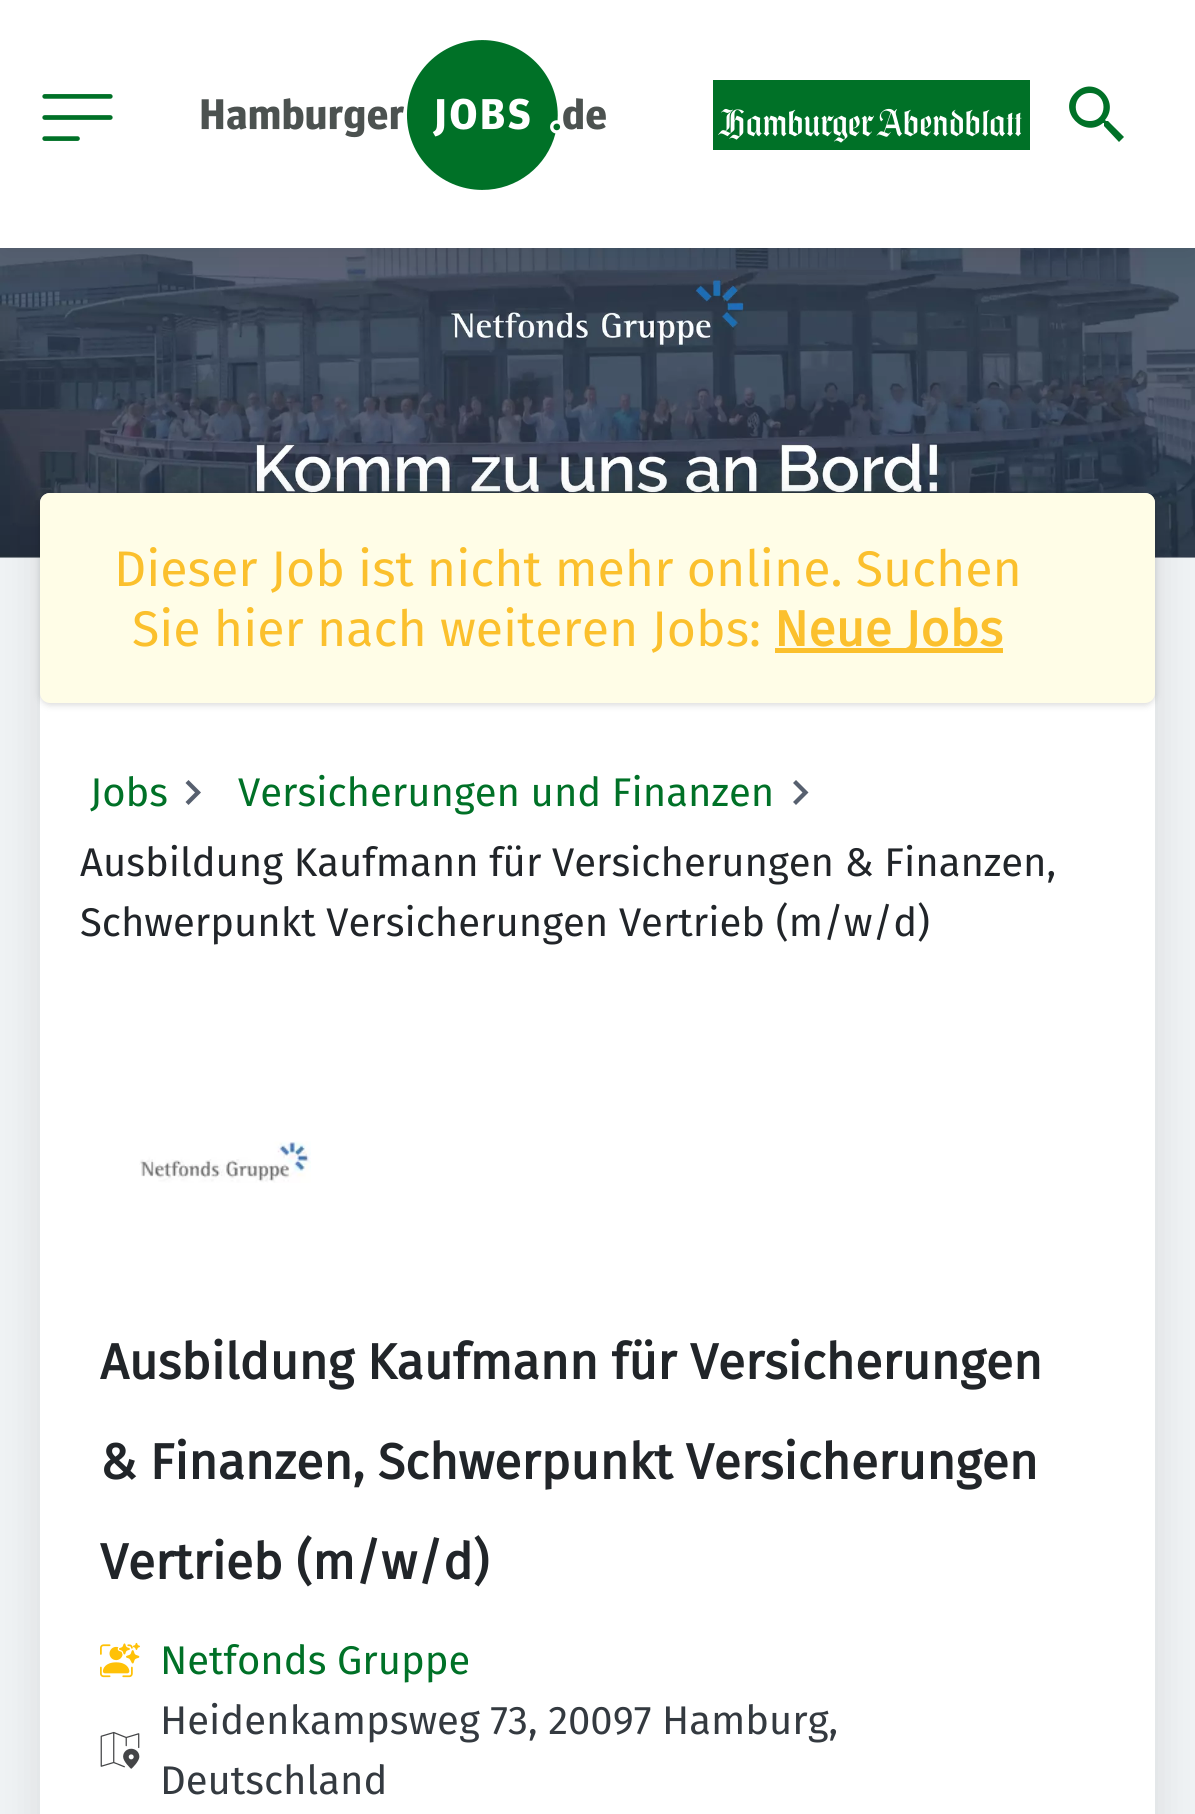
import math
import cairocffi as cairo

surface = cairo.ImageSurface(cairo.FORMAT_RGB24, 1195, 1814)
cr = cairo.Context(surface)
options = cairo.FontOptions()
options.set_hint_metrics(cairo.HINT_METRICS_OFF)
options.set_hint_style(cairo.HINT_STYLE_NONE)
cr.set_font_options(options)
cr.set_miter_limit(4)


def use_color(code):
    cr.set_source_rgb(*(v / 255 for v in bytes.fromhex(code[-6:])))


def round_rect(x, y, w, h, r):
    cr.new_sub_path()
    for i, (u, v) in enumerate([(x + w - r, y + h - r), (x + r, y + h - r), (x + r, y + r), (x + w - r, y + r)]):
        cr.arc(u, v, r, i * math.pi / 2, (i + 1) * math.pi / 2)
    cr.close_path()


def shadow(x, y, w, h, r, blur, alpha):
    cr.push_group_with_content(cairo.CONTENT_ALPHA)
    cr.set_operator(cairo.OPERATOR_SOURCE)
    for i in range(15, -16, -2):
        e = blur * i / 6
        if min(w, h) + 2 * e > 0:
            cr.set_source_rgba(0, 0, 0, alpha * math.erfc((i - 1) / 8.5) / 2)
            round_rect(x - e, y - e, w + 2 * e, h + 2 * e, max(0, min(r + e + blur * .6, min(w, h) / 2 + e)))
            cr.fill()
    cr.mask(cr.pop_group())


def picture(path, x, y, w, h):
    cr.save()
    cr.set_source_surface(cairo.ImageSurface.create_from_png(path), x, y)
    cr.rectangle(x, y, w, h)
    cr.fill()
    cr.restore()


use_color("#eff2f4")
cr.paint()
picture("img4.png", 0, 248, 1195, 310)
use_color("#000000")
shadow(0, 8, 1195, 247, 0, 19, 0.1)
use_color("#ffffff")
cr.rectangle(0, 0, 1195, 248)
cr.fill()
picture("img1.png", 42, 94, 71, 47)
picture("img2.png", 201, 40, 405, 150)
picture("img3.png", 713, 80, 317, 70)
use_color("#007127")
cr.new_path()
cr.move_to(1108, 121)
cr.line_to(1106, 121)
cr.line_to(1105, 120)
cr.curve_to(1121, 101, 1094, 74, 1075, 93)
cr.curve_to(1057, 111, 1084, 139, 1103, 123)
cr.line_to(1104, 123)
cr.line_to(1104, 126)
cr.line_to(1119, 142)
cr.line_to(1124, 137)
cr.close_path()
cr.move_to(1090, 121)
cr.curve_to(1071, 121, 1071, 93, 1090, 93)
cr.curve_to(1108, 93, 1108, 121, 1090, 121)
cr.close_path()
cr.fill()
use_color("#000000")
shadow(40, 500, 1115, 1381, 10, 19, 0.1)
use_color("#ffffff")
round_rect(40, 493, 1115, 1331, 10)
cr.fill()
use_color("#000000")
shadow(40, 495, 1115, 210, 10, 2.5, 0.06)
shadow(40, 495, 1115, 210, 10, 4, 0.1)
use_color("#fffde7")
round_rect(42.5, 495.5, 1110, 205, 7.5)
cr.fill_preserve()
cr.set_line_width(5)
cr.stroke()
cr.select_font_face("Fira Sans")
cr.set_font_size(50)
use_color("#fbc02d")
cr.move_to(114, 586)
cr.show_text("Dieser Job ist nicht mehr online. Suchen")
cr.move_to(132, 646)
cr.show_text("Sie hier nach weiteren Jobs:")
cr.rectangle(775, 648, 228, 5)
cr.fill()
cr.select_font_face("Fira Sans", cairo.FONT_SLANT_NORMAL, cairo.FONT_WEIGHT_BOLD)
cr.move_to(774, 646)
cr.show_text("Neue Jobs")
cr.select_font_face("Fira Sans")
cr.set_font_size(40)
use_color("#007127")
cr.move_to(90, 806)
cr.show_text("Jobs")
use_color("#57606f")
cr.new_path()
cr.move_to(185.5, 802)
cr.line_to(195, 792.5)
cr.line_to(185.5, 783)
cr.line_to(188.5, 780)
cr.line_to(201, 792.5)
cr.line_to(188.5, 805)
cr.close_path()
cr.fill()
use_color("#007127")
cr.move_to(238, 806)
cr.show_text("Versicherungen und Finanzen")
use_color("#57606f")
cr.new_path()
cr.move_to(793, 802)
cr.line_to(802.5, 792.5)
cr.line_to(793, 783)
cr.line_to(796, 780)
cr.line_to(808.5, 792.5)
cr.line_to(796, 805)
cr.close_path()
cr.fill()
use_color("#212529")
cr.move_to(80, 876)
cr.show_text("Ausbildung Kaufmann für Versicherungen & Finanzen,")
cr.move_to(80, 936)
cr.show_text("Schwerpunkt Versicherungen Vertrieb (m/w/d)")
picture("img5.png", 139, 1141, 172, 42)
cr.select_font_face("Fira Sans", cairo.FONT_SLANT_NORMAL, cairo.FONT_WEIGHT_BOLD)
cr.set_font_size(50)
cr.move_to(100, 1379)
cr.show_text("Ausbildung Kaufmann für Versicherungen")
cr.move_to(100, 1479)
cr.show_text("& Finanzen, Schwerpunkt Versicherungen")
cr.move_to(100, 1579)
cr.show_text("Vertrieb (m/w/d)")
picture("img6.png", 100, 1642, 40, 36)
cr.select_font_face("Fira Sans")
cr.set_font_size(40)
use_color("#007127")
cr.move_to(160, 1674)
cr.show_text("Netfonds Gruppe")
picture("img7.png", 100, 1731, 40, 38)
use_color("#343a40")
cr.move_to(160, 1734)
cr.show_text("Heidenkampsweg 73, 20097 Hamburg,")
cr.move_to(160, 1794)
cr.show_text("Deutschland")
surface.write_to_png("result.png")
